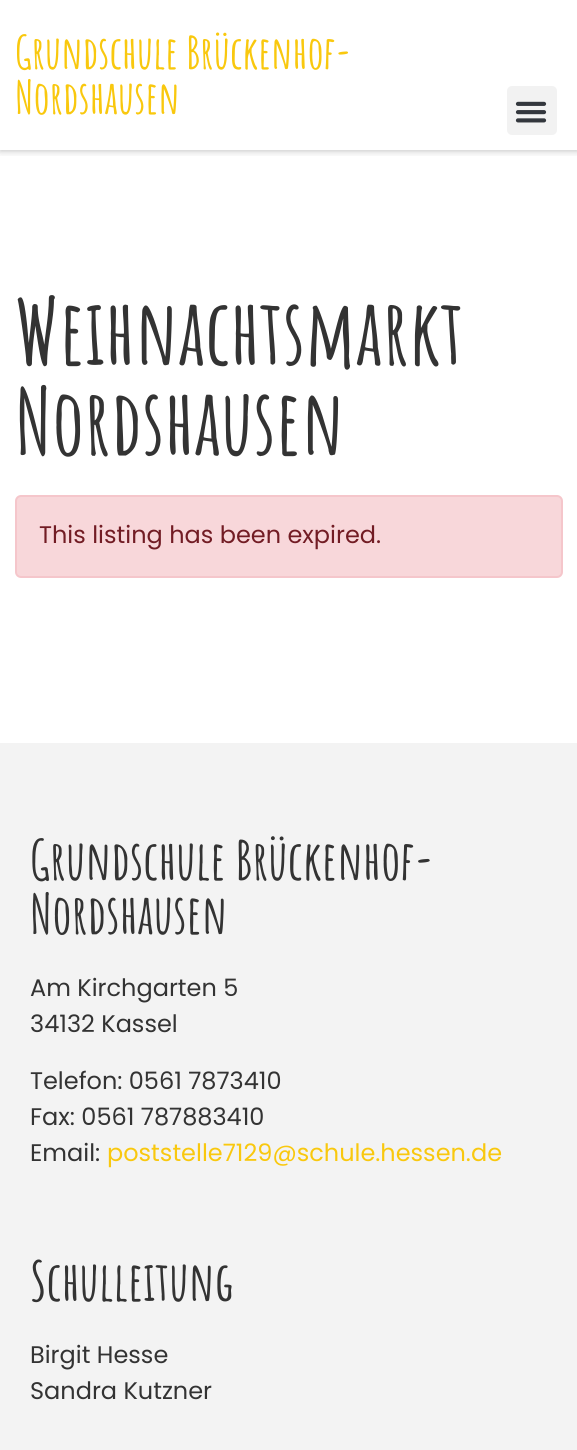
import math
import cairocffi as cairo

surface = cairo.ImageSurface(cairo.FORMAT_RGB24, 577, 1450)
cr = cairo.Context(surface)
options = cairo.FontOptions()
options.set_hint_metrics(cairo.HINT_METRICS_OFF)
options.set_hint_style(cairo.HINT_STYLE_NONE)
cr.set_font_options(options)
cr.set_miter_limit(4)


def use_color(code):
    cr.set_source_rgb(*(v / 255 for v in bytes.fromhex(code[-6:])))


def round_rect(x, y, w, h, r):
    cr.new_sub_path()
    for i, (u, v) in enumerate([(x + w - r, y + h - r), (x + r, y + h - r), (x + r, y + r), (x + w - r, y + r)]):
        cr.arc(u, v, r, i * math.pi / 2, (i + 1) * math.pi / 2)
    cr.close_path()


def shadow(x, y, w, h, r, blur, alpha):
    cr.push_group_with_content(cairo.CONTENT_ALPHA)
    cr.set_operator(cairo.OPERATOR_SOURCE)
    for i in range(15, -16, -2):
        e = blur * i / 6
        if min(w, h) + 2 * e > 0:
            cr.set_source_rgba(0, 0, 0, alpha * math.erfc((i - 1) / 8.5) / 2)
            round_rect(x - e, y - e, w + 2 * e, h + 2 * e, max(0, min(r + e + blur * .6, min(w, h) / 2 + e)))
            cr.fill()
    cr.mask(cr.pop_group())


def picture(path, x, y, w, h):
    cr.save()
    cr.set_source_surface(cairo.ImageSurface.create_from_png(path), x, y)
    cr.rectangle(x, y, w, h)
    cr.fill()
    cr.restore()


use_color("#ffffff")
cr.paint()
cr.save()
cr.rectangle(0, 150, 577, 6)
cr.clip()
use_color("#000000")
shadow(0, 0, 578, 150, 0, 4, 0.3)
cr.restore()
cr.select_font_face("Amatic SC", cairo.FONT_SLANT_NORMAL, cairo.FONT_WEIGHT_BOLD)
cr.set_font_size(45)
use_color("#f9c80e")
cr.move_to(15, 69)
cr.show_text("Grundschule Brückenhof-")
cr.move_to(15, 114)
cr.show_text("Nordshausen")
use_color("#f2f2f2")
round_rect(507, 86, 50, 49, 5)
cr.fill()
picture("img1.png", 515, 101, 32, 22)
cr.set_font_size(90)
use_color("#333333")
cr.move_to(15, 365)
cr.show_text("Weihnachtsmarkt")
cr.move_to(15, 455)
cr.show_text("Nordshausen")
use_color("#f8d7da")
round_rect(16, 496, 546, 81, 5)
cr.fill_preserve()
use_color("#f5c6cb")
cr.stroke()
cr.select_font_face("Poppins")
cr.set_font_size(24)
use_color("#721c24")
cr.move_to(39, 543)
cr.show_text("This listing has been expired.")
use_color("#f3f3f3")
cr.rectangle(0, 743, 577, 707)
cr.fill()
cr.select_font_face("Amatic SC", cairo.FONT_SLANT_NORMAL, cairo.FONT_WEIGHT_BOLD)
cr.set_font_size(54)
use_color("#333333")
cr.move_to(30, 880)
cr.show_text("Grundschule Brückenhof-")
cr.move_to(30, 934)
cr.show_text("Nordshausen")
cr.select_font_face("Poppins")
cr.set_font_size(24)
cr.move_to(30, 996)
cr.show_text("Am Kirchgarten 5")
cr.move_to(30, 1032)
cr.show_text("34132 Kassel")
cr.move_to(30, 1089)
cr.show_text("Telefon: 0561 7873410")
cr.move_to(30, 1125)
cr.show_text("Fax: 0561 787883410")
cr.move_to(30, 1161)
cr.show_text("Email:")
use_color("#f9c80e")
cr.move_to(107, 1161)
cr.show_text("poststelle7129@schule.hessen.de")
cr.select_font_face("Amatic SC", cairo.FONT_SLANT_NORMAL, cairo.FONT_WEIGHT_BOLD)
cr.set_font_size(54)
use_color("#333333")
cr.move_to(30, 1301)
cr.show_text("Schulleitung")
cr.select_font_face("Poppins")
cr.set_font_size(24)
cr.move_to(30, 1363)
cr.show_text("Birgit Hesse")
cr.move_to(30, 1399)
cr.show_text("Sandra Kutzner")
surface.write_to_png("result.png")
